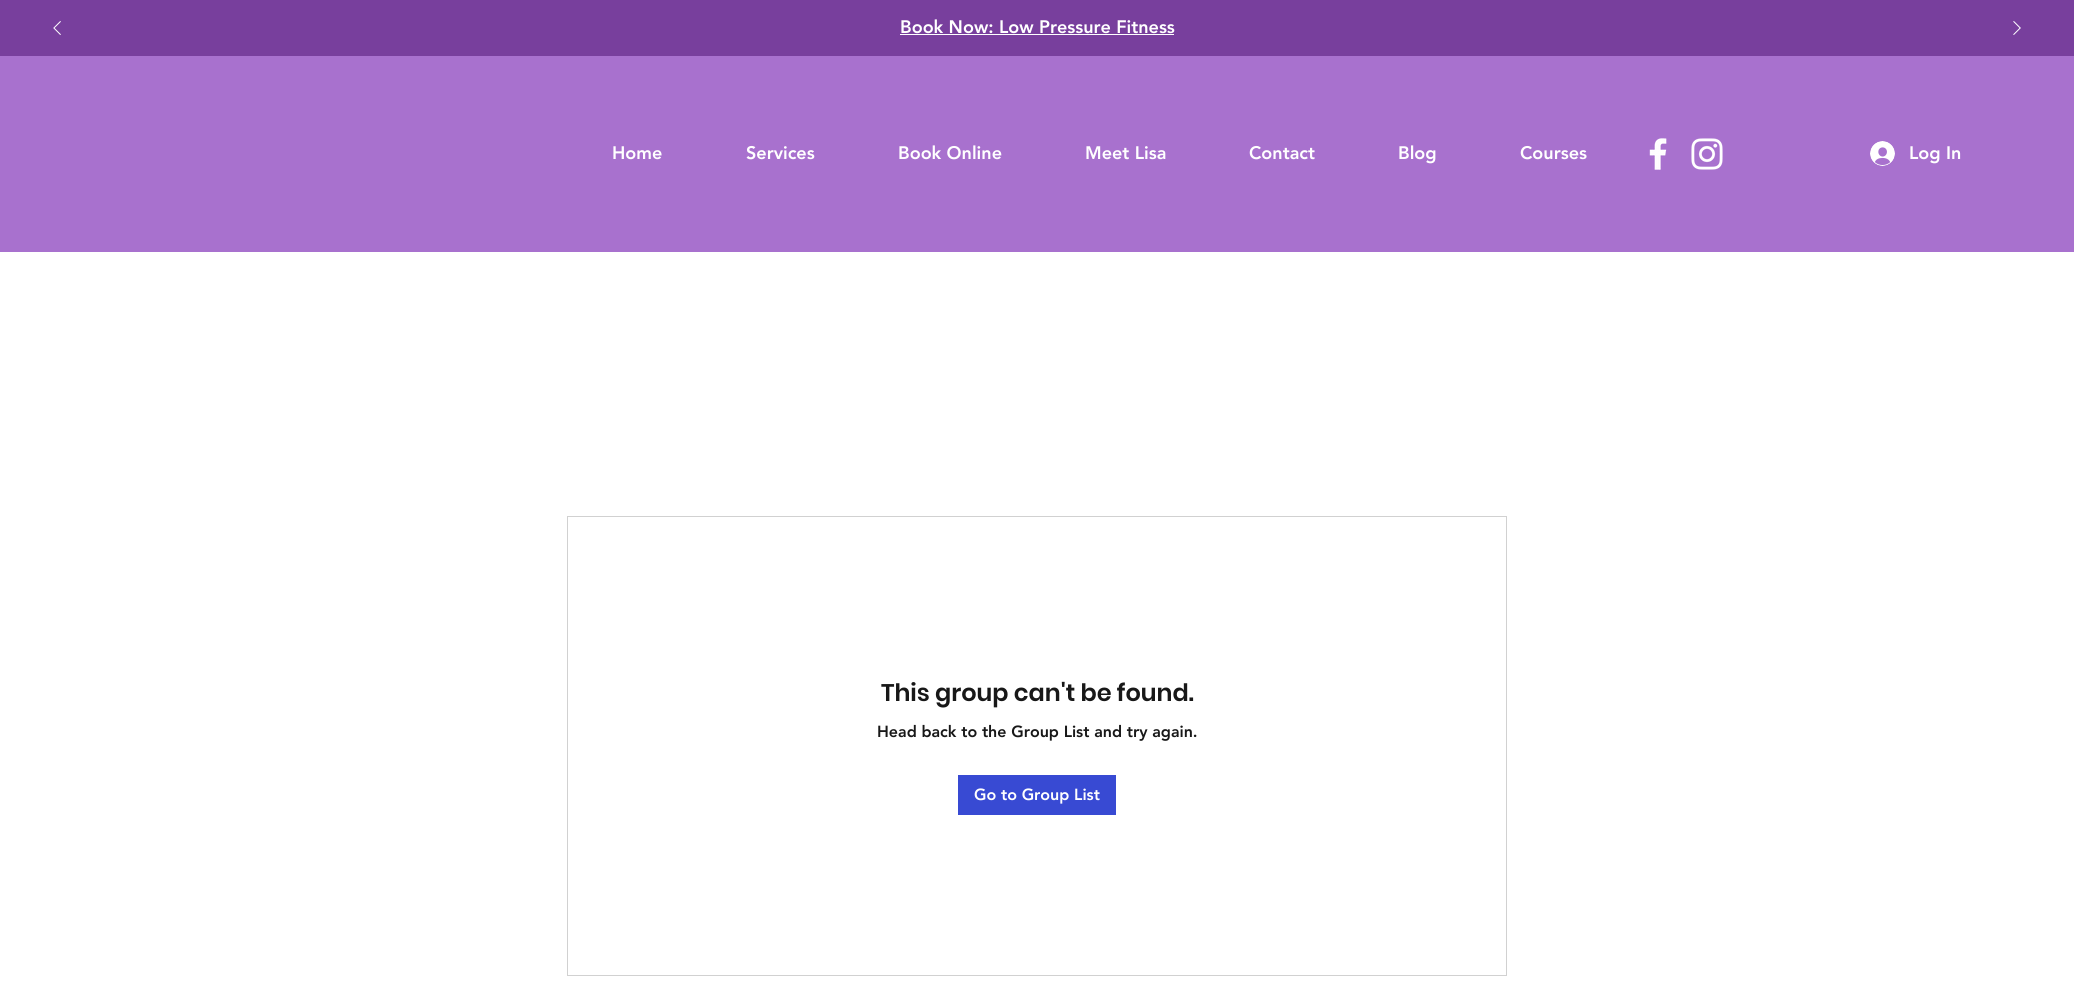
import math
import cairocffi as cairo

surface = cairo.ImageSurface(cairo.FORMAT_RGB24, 2074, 987)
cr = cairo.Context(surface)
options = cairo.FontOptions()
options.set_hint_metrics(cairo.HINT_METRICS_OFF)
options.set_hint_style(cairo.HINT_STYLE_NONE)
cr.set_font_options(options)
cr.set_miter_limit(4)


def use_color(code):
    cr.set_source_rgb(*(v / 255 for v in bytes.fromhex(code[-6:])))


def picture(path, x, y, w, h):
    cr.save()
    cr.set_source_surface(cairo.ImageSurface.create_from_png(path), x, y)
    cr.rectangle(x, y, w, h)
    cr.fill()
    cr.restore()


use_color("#ffffff")
cr.paint()
use_color("#783f9d")
cr.rectangle(0, 0, 2074, 56)
cr.fill()
picture("img1.png", 53, 21, 8, 14)
cr.select_font_face("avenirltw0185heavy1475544 Black")
cr.set_font_size(18)
use_color("#ffffff")
cr.move_to(900, 33)
cr.show_text("Book Now: Low Pressure Fitness")
cr.rectangle(900, 34, 274, 1)
cr.fill()
picture("img2.png", 2013, 21, 8, 14)
use_color("#a871ce")
cr.rectangle(0, 56, 2074, 196)
cr.fill()
use_color("#ffffff")
cr.move_to(612, 159)
cr.show_text("Home")
cr.move_to(746, 159)
cr.show_text("Services")
cr.move_to(898, 159)
cr.show_text("Book Online")
cr.move_to(1085, 159)
cr.show_text("Meet Lisa")
cr.move_to(1249, 159)
cr.show_text("Contact")
cr.move_to(1398, 159)
cr.show_text("Blog")
cr.move_to(1520, 159)
cr.show_text("Courses")
picture("img3.png", 1649, 138, 18, 32)
picture("img4.png", 1691, 138, 32, 32)
picture("img5.png", 1870, 141, 25, 25)
cr.move_to(1909, 159)
cr.show_text("Log In")
cr.rectangle(567.5, 516.5, 939, 459)
use_color("#d1d1d1")
cr.set_line_width(1)
cr.stroke()
cr.select_font_face("Poppins SemiBold")
cr.set_font_size(24)
use_color("#181818")
cr.move_to(881, 701)
cr.show_text("This group can't be found.")
cr.select_font_face("avenirltw0185heavy1475544 Black")
cr.set_font_size(16)
cr.move_to(877, 737)
cr.show_text("Head back to the Group List and try again.")
use_color("#384ad3")
cr.rectangle(958, 775, 158, 40)
cr.fill()
use_color("#ffffff")
cr.move_to(974, 800)
cr.show_text("Go to Group List")
surface.write_to_png("result.png")
